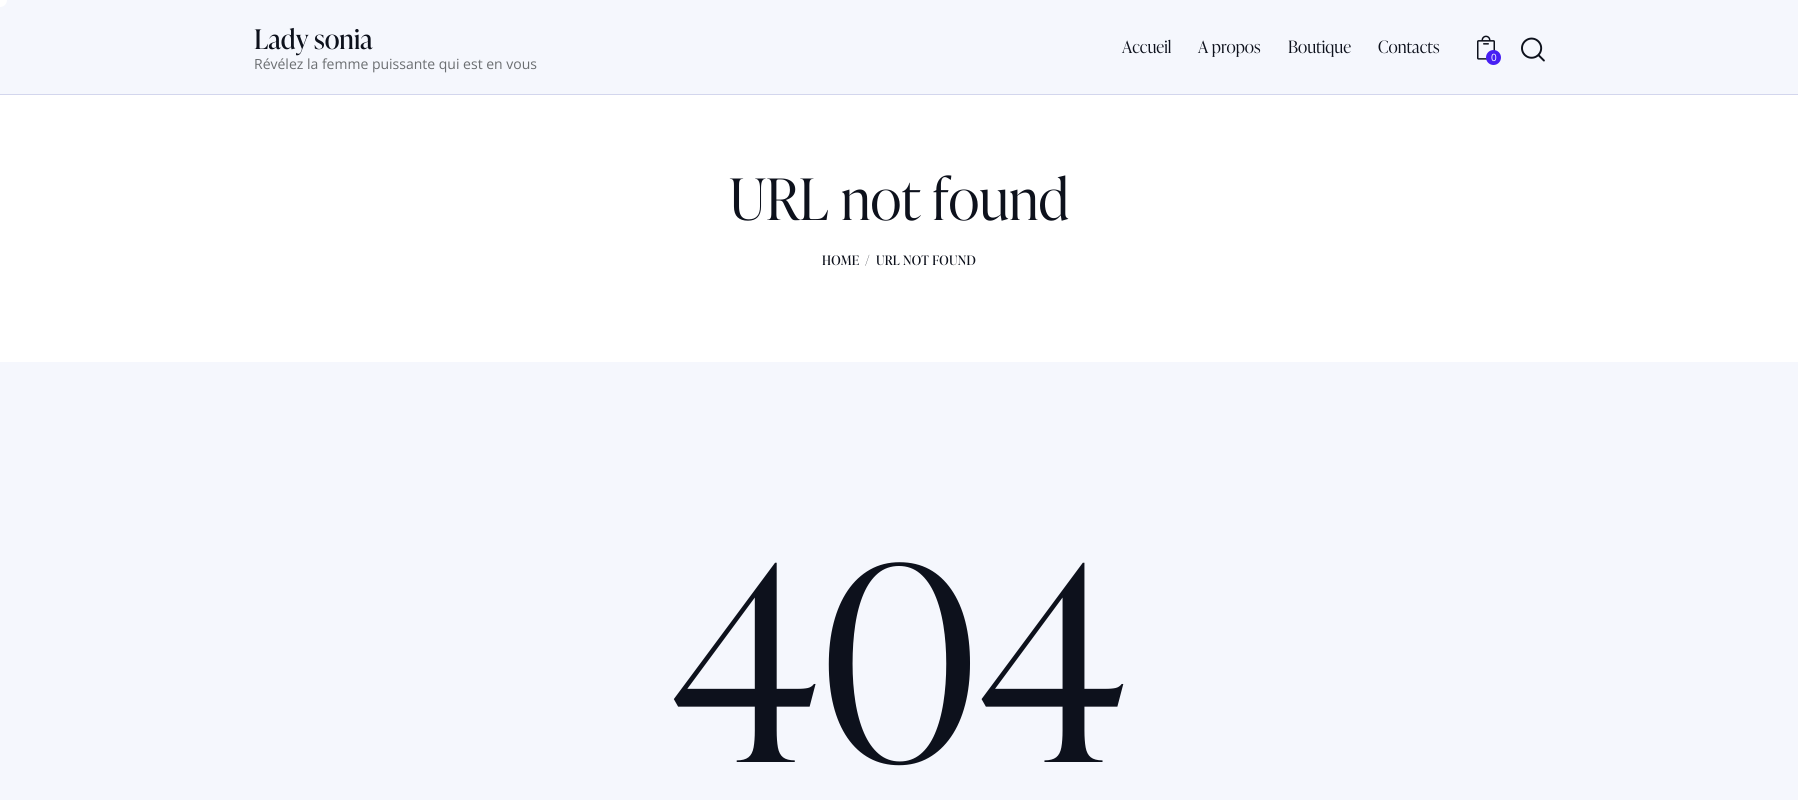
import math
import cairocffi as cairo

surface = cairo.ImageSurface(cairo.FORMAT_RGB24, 1798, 800)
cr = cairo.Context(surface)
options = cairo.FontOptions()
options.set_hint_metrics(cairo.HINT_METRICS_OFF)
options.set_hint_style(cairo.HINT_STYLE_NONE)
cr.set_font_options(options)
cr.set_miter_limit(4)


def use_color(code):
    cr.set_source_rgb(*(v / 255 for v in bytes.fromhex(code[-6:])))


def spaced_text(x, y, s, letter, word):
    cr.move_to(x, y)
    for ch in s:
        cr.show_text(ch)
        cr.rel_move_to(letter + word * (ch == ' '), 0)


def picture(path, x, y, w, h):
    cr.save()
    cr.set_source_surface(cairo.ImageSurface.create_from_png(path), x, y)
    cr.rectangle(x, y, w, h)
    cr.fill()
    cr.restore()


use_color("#f5f7fd")
cr.paint()
use_color("#ffffff")
cr.arc(0, 0, 7, 0, 2 * math.pi)
cr.fill()
use_color("#d3d6ed")
cr.rectangle(0, 94, 1798, 1)
cr.fill()
cr.select_font_face("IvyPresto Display")
cr.set_font_size(27)
use_color("#0d111c")
cr.move_to(254, 49)
cr.show_text("Lady sonia")
cr.select_font_face("Open Sans")
cr.set_font_size(14)
use_color("#6b6e71")
cr.move_to(254, 69)
cr.show_text("Révélez la femme puissante qui est en vous")
cr.select_font_face("IvyPresto Display Light")
cr.set_font_size(17)
use_color("#0d111c")
cr.move_to(1122, 53)
cr.show_text("Accueil")
cr.move_to(1198, 53)
cr.show_text("A propos")
cr.move_to(1288, 53)
cr.show_text("Boutique")
cr.move_to(1378, 53)
cr.show_text("Contacts")
picture("img1.png", 1477, 35, 18, 25)
use_color("#471ff3")
cr.arc(1493.5, 57.5, 7.5, 0, 2 * math.pi)
cr.fill()
cr.select_font_face("Open Sans")
cr.set_font_size(10)
use_color("#ffffff")
cr.move_to(1491, 61)
cr.show_text("0")
picture("img2.png", 1521, 37, 24, 25)
cr.rectangle(0, 95, 1798, 267)
cr.fill()
cr.select_font_face("IvyPresto Display Light")
cr.set_font_size(57)
use_color("#0d111c")
cr.move_to(729, 220)
cr.show_text("URL not found")
cr.select_font_face("IvyPresto Display")
cr.set_font_size(13)
spaced_text(822, 265, "HOME", 0.25, 0)
spaced_text(865, 265, "/", 0.25, 0)
spaced_text(876, 265, "URL NOT FOUND", 0.25, 0)
cr.select_font_face("IvyPresto Display Light")
cr.set_font_size(270)
cr.move_to(673, 762)
cr.show_text("404")
surface.write_to_png("result.png")
